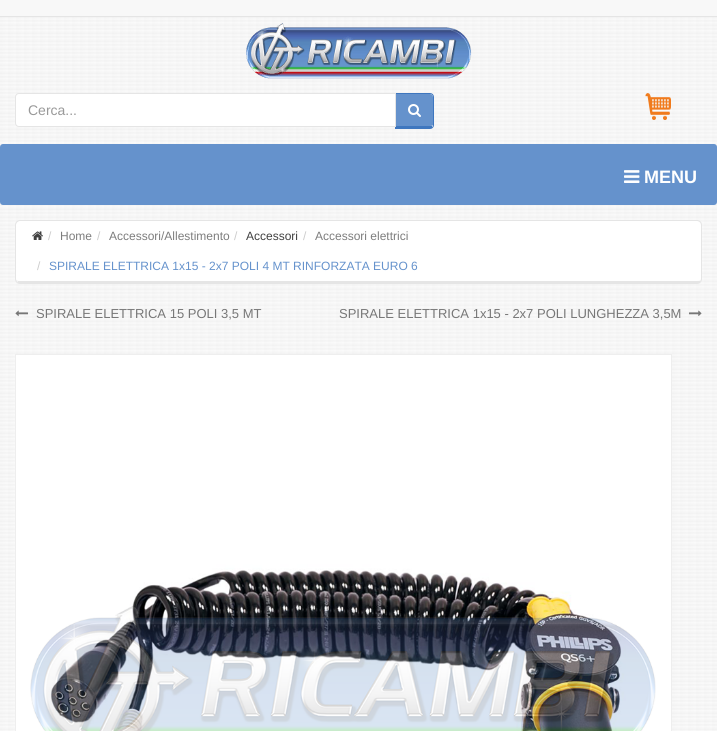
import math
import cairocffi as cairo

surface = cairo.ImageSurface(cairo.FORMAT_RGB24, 717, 731)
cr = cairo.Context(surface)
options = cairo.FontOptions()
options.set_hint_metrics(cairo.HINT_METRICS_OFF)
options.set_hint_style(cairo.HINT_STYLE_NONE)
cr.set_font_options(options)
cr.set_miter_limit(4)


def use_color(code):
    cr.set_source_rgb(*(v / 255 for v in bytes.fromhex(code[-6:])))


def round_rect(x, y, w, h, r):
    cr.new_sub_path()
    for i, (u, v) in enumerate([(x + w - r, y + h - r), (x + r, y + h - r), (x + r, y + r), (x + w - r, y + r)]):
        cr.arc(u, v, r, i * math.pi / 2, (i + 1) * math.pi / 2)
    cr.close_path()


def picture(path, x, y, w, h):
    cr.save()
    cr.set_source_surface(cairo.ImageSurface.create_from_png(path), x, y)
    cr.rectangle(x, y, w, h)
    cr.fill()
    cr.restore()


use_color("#ffffff")
cr.paint()
picture("img1.png", 0, 17, 717, 714)
use_color("#f8f8f8")
cr.rectangle(0, 0, 717, 16)
cr.fill()
use_color("#e5e5e5")
cr.rectangle(0, 16, 717, 1)
cr.fill()
picture("img2.png", 246, 23, 226, 56)
use_color("#6592cc")
cr.new_path()
cr.move_to(396, 94)
cr.line_to(430, 94)
cr.curve_to(431.5, 94, 433, 95.5, 433, 97)
cr.line_to(433, 125)
cr.curve_to(433, 125.5, 431.5, 126, 430, 126)
cr.line_to(396, 126)
cr.close_path()
cr.fill()
cr.new_path()
cr.move_to(395.5, 93.5)
cr.line_to(430, 93.5)
cr.curve_to(432, 93.5, 433.5, 95, 433.5, 97)
cr.line_to(433.5, 125)
cr.curve_to(433.5, 127, 432, 128.5, 430, 128.5)
cr.line_to(395.5, 128.5)
cr.close_path()
use_color("#3f77bf")
cr.set_line_width(1)
cr.stroke()
cr.rectangle(395, 126, 37, 2)
cr.fill()
use_color("#ffffff")
cr.new_path()
cr.move_to(19, 93.5)
cr.line_to(395.5, 93.5)
cr.line_to(395.5, 126.5)
cr.line_to(19, 126.5)
cr.curve_to(17, 126.5, 15.5, 125, 15.5, 123)
cr.line_to(15.5, 97)
cr.curve_to(15.5, 95, 17, 93.5, 19, 93.5)
cr.close_path()
cr.fill_preserve()
use_color("#e5e5e5")
cr.stroke()
cr.select_font_face("Liberation Sans")
cr.set_font_size(14)
use_color("#999999")
cr.move_to(28, 115)
cr.show_text("Cerca...")
picture("img3.png", 408, 104, 13, 13)
picture("img4.png", 645, 93, 26, 27)
use_color("#6592cc")
round_rect(0, 144, 717, 61, 3)
cr.fill()
picture("img5.png", 624, 170, 16, 13)
cr.select_font_face("Liberation Sans", cairo.FONT_SLANT_NORMAL, cairo.FONT_WEIGHT_BOLD)
cr.set_font_size(18)
use_color("#ffffff")
cr.move_to(644, 183)
cr.show_text("MENU")
cr.new_path()
cr.move_to(20, 221)
cr.line_to(697, 221)
cr.curve_to(699, 221, 701, 223, 701, 225)
cr.line_to(701, 279)
cr.curve_to(701, 280, 699, 281, 697, 281)
cr.line_to(20, 281)
cr.curve_to(18, 281, 16, 280, 16, 279)
cr.line_to(16, 225)
cr.curve_to(16, 223, 18, 221, 20, 221)
cr.close_path()
cr.fill()
round_rect(15.5, 220.5, 686, 63, 4.5)
use_color("#e5e5e5")
cr.stroke()
cr.rectangle(18, 281, 682, 2)
cr.fill()
picture("img6.png", 32, 231, 11, 9)
cr.select_font_face("Liberation Sans")
cr.set_font_size(12)
use_color("#cccccc")
cr.move_to(48, 240)
cr.show_text("/")
use_color("#7d7d7d")
cr.move_to(60, 240)
cr.show_text("Home")
use_color("#cccccc")
cr.move_to(97, 240)
cr.show_text("/")
use_color("#7d7d7d")
cr.move_to(109, 240)
cr.show_text("Accessori/Allestimento")
use_color("#cccccc")
cr.move_to(234, 240)
cr.show_text("/")
use_color("#404040")
cr.move_to(246, 240)
cr.show_text("Accessori")
use_color("#cccccc")
cr.move_to(303, 240)
cr.show_text("/")
use_color("#7d7d7d")
cr.move_to(315, 240)
cr.show_text("Accessori elettrici")
use_color("#cccccc")
cr.move_to(37, 270)
cr.show_text("/")
use_color("#6592cc")
cr.move_to(49, 270)
cr.show_text("SPIRALE ELETTRICA 1x15 - 2x7 POLI 4 MT RINFORZATA EURO 6")
picture("img7.png", 15, 310, 13, 7)
cr.set_font_size(13)
use_color("#777777")
cr.move_to(36, 318)
cr.show_text("SPIRALE ELETTRICA 15 POLI 3,5 MT")
cr.move_to(339, 318)
cr.show_text("SPIRALE ELETTRICA 1x15 - 2x7 POLI LUNGHEZZA 3,5M")
picture("img8.png", 689, 310, 13, 6)
cr.rectangle(15.5, 354.5, 656, 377)
use_color("#eeeeee")
cr.stroke()
picture("img9.png", 16, 355, 655, 376)
surface.write_to_png("result.png")
